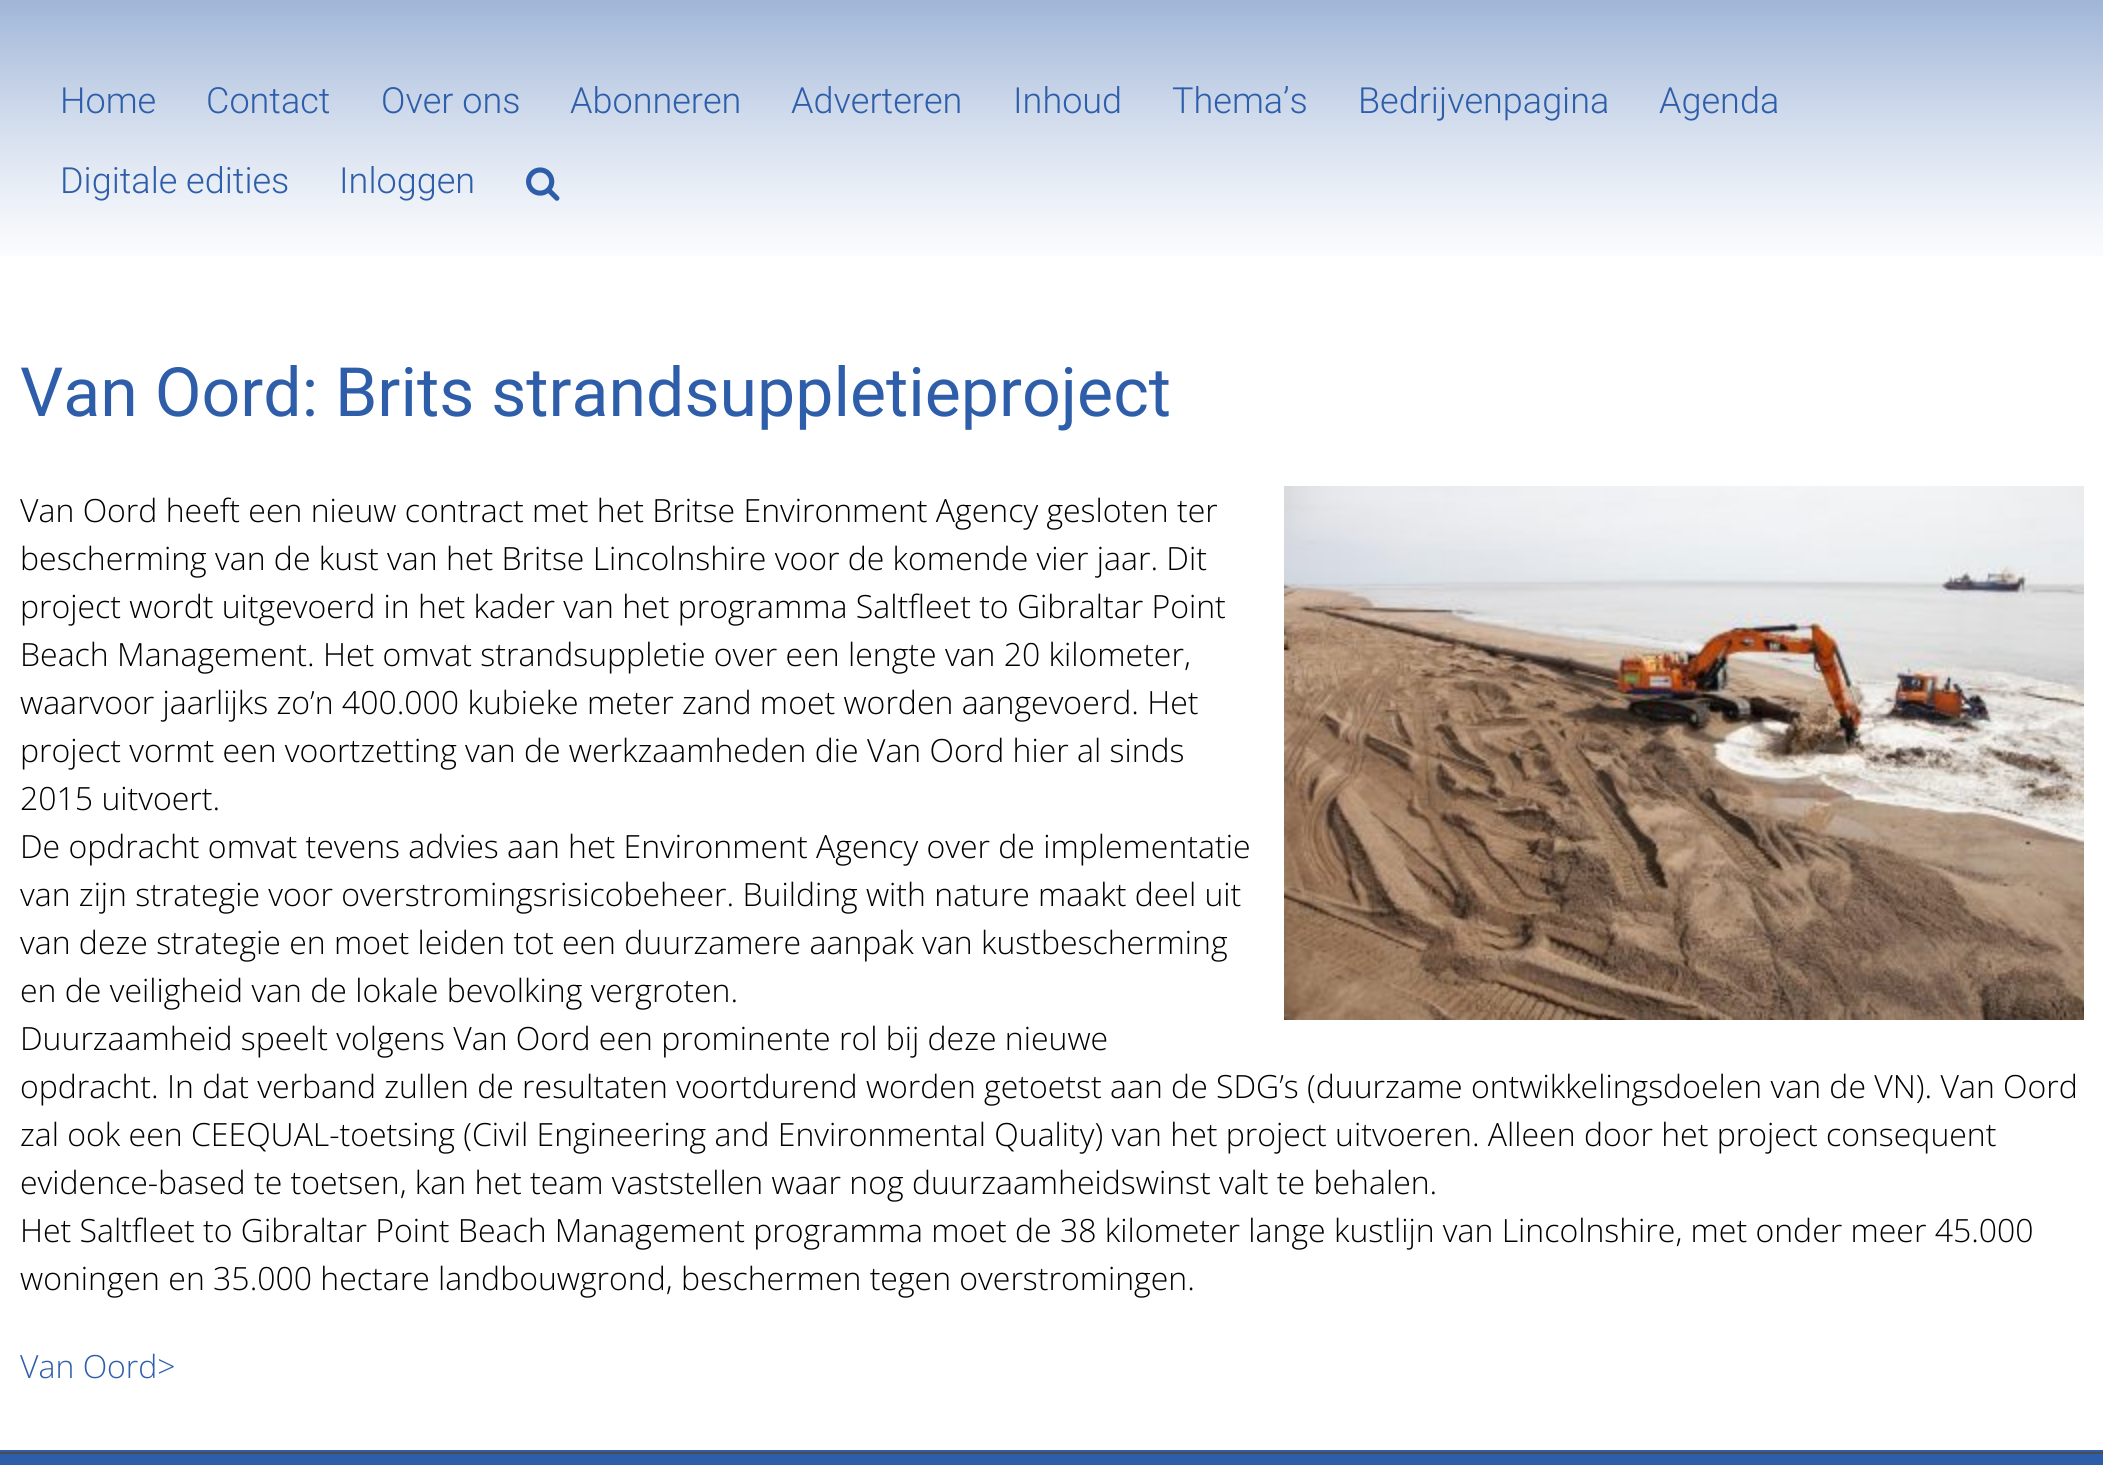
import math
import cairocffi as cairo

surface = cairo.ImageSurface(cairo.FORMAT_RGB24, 2103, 1465)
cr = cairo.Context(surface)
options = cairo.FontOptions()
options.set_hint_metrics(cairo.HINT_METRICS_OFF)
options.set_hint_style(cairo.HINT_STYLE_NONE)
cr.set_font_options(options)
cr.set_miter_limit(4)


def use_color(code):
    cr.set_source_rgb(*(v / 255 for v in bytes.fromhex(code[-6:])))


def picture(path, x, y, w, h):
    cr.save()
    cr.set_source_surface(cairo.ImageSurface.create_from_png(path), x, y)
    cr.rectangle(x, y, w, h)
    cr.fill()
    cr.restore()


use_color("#ffffff")
cr.paint()
picture("img1.png", 0, 0, 2103, 256)
cr.select_font_face("Roboto Light")
cr.set_font_size(36)
use_color("#2e5eaa")
cr.move_to(60, 113)
cr.show_text("Home")
cr.move_to(206, 113)
cr.show_text("Contact")
cr.move_to(381, 113)
cr.show_text("Over ons")
cr.move_to(570, 113)
cr.show_text("Abonneren")
cr.move_to(791, 113)
cr.show_text("Adverteren")
cr.move_to(1013, 113)
cr.show_text("Inhoud")
cr.move_to(1172, 113)
cr.show_text("Thema’s")
cr.move_to(1358, 113)
cr.show_text("Bedrijvenpagina")
cr.move_to(1659, 113)
cr.show_text("Agenda")
cr.move_to(60, 193)
cr.show_text("Digitale edities")
cr.move_to(339, 193)
cr.show_text("Inloggen")
picture("img2.png", 526, 167, 34, 34)
cr.select_font_face("Roboto")
cr.set_font_size(68)
cr.move_to(20, 416)
cr.show_text("Van Oord: Brits strandsuppletieproject")
picture("img3.png", 1284, 486, 800, 534)
cr.select_font_face("Open Sans Light")
cr.set_font_size(32)
use_color("#000000")
cr.move_to(20, 522)
cr.show_text("Van Oord heeft een nieuw contract met het Britse Environment Agency gesloten ter")
cr.move_to(20, 570)
cr.show_text("bescherming van de kust van het Britse Lincolnshire voor de komende vier jaar. Dit")
cr.move_to(20, 618)
cr.show_text("project wordt uitgevoerd in het kader van het programma Saltfleet to Gibraltar Point")
cr.move_to(20, 666)
cr.show_text("Beach Management. Het omvat strandsuppletie over een lengte van 20 kilometer,")
cr.move_to(20, 714)
cr.show_text("waarvoor jaarlijks zo’n 400.000 kubieke meter zand moet worden aangevoerd. Het")
cr.move_to(20, 762)
cr.show_text("project vormt een voortzetting van de werkzaamheden die Van Oord hier al sinds")
cr.move_to(20, 810)
cr.show_text("2015 uitvoert.")
cr.move_to(20, 858)
cr.show_text("De opdracht omvat tevens advies aan het Environment Agency over de implementatie")
cr.move_to(20, 906)
cr.show_text("van zijn strategie voor overstromingsrisicobeheer. Building with nature maakt deel uit")
cr.move_to(20, 954)
cr.show_text("van deze strategie en moet leiden tot een duurzamere aanpak van kustbescherming")
cr.move_to(20, 1002)
cr.show_text("en de veiligheid van de lokale bevolking vergroten.")
cr.move_to(20, 1050)
cr.show_text("Duurzaamheid speelt volgens Van Oord een prominente rol bij deze nieuwe")
cr.move_to(20, 1098)
cr.show_text("opdracht. In dat verband zullen de resultaten voortdurend worden getoetst aan de SDG’s (duurzame ontwikkelingsdoelen van de VN). Van Oord")
cr.move_to(20, 1146)
cr.show_text("zal ook een CEEQUAL-toetsing (Civil Engineering and Environmental Quality) van het project uitvoeren. Alleen door het project consequent")
cr.move_to(20, 1194)
cr.show_text("evidence-based te toetsen, kan het team vaststellen waar nog duurzaamheidswinst valt te behalen.")
cr.move_to(20, 1242)
cr.show_text("Het Saltfleet to Gibraltar Point Beach Management programma moet de 38 kilometer lange kustlijn van Lincolnshire, met onder meer 45.000")
cr.move_to(20, 1290)
cr.show_text("woningen en 35.000 hectare landbouwgrond, beschermen tegen overstromingen.")
use_color("#2e5eaa")
cr.move_to(20, 1378)
cr.show_text("Van Oord>")
cr.rectangle(0, 1450, 2103, 2)
cr.fill()
cr.rectangle(0, 1454, 2103, 11)
cr.fill()
use_color("#4b4c4d")
cr.rectangle(0, 1452, 2103, 2)
cr.fill()
surface.write_to_png("result.png")
